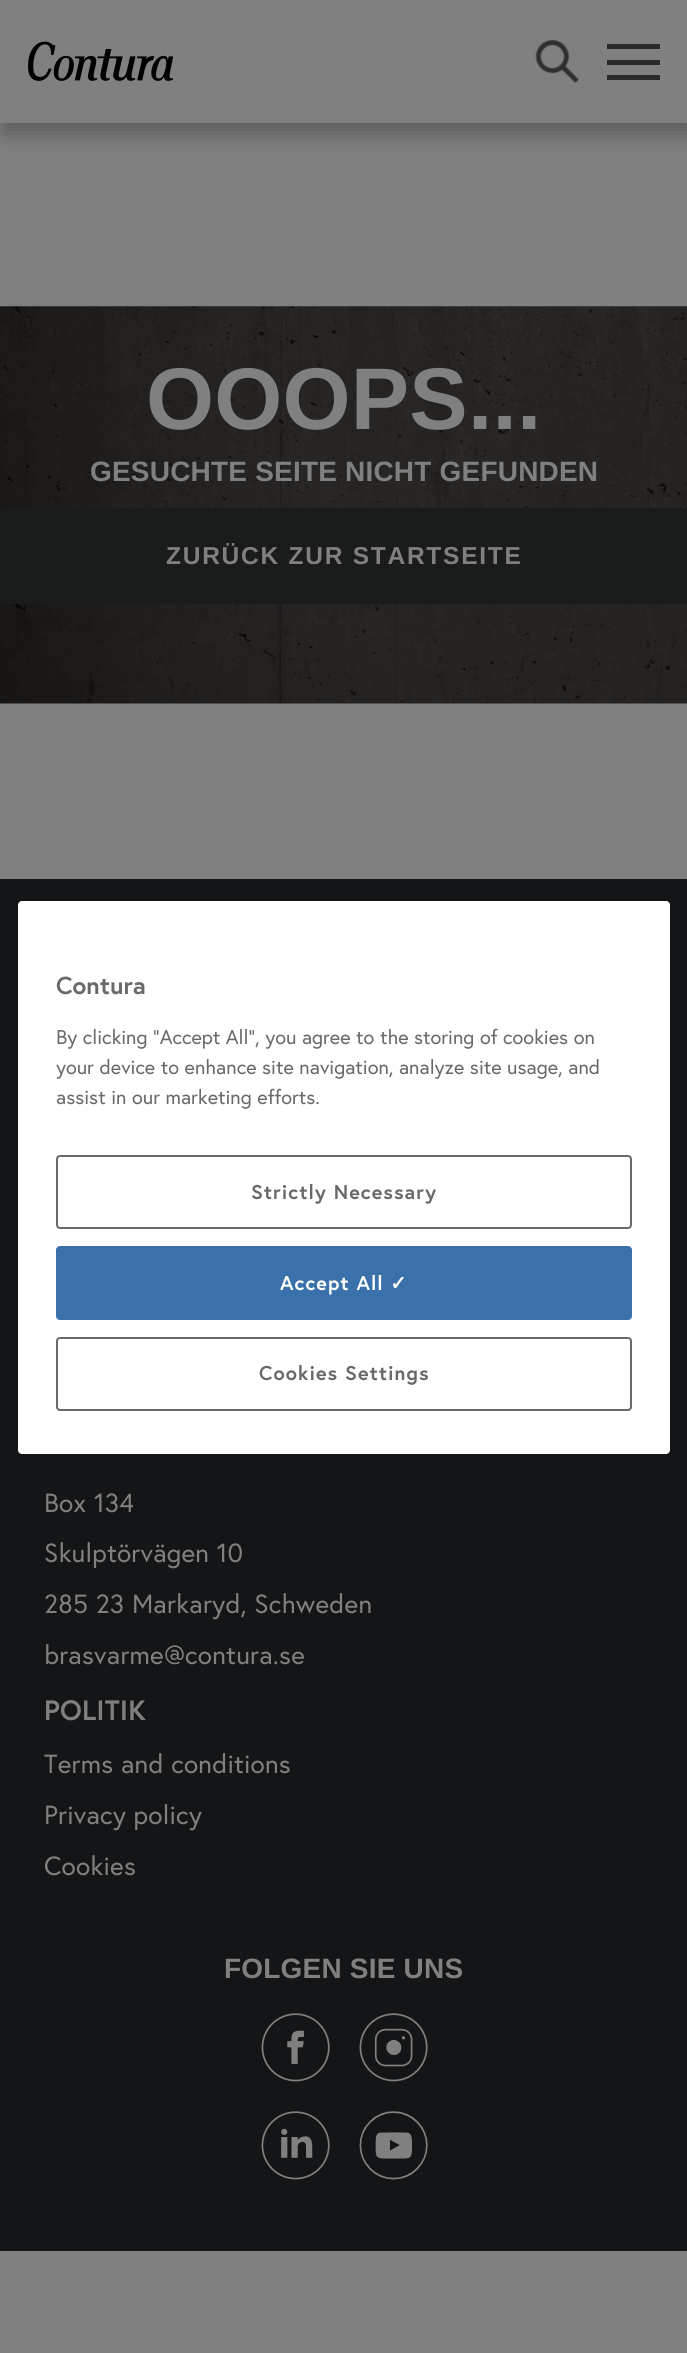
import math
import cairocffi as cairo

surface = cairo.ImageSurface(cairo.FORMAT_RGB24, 687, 2353)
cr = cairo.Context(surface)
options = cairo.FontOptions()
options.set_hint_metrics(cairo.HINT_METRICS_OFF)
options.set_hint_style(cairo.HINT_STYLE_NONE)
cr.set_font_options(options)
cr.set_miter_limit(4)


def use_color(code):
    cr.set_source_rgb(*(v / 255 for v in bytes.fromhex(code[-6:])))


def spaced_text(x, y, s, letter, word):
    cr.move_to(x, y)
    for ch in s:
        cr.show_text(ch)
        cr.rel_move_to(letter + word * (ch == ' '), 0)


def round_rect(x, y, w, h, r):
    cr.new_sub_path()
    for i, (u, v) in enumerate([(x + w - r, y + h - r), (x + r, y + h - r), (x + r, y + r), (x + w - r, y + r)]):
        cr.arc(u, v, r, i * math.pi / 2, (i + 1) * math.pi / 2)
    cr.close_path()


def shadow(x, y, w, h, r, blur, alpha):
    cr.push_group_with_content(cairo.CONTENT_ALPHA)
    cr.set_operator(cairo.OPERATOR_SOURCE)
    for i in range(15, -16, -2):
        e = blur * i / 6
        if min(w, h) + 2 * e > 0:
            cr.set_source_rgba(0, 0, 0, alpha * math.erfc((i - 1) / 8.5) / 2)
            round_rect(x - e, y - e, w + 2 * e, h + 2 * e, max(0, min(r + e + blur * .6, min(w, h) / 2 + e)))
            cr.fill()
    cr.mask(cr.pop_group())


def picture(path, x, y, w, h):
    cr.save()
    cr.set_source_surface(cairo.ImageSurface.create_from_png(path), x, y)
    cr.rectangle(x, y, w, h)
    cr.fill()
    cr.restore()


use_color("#808080")
cr.paint()
use_color("#191919")
shadow(4, 11, 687, 122, 0, 10.5, 0.14)
shadow(4, 11, 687, 122, 0, 10.5, 0.14)
shadow(4, 11, 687, 122, 0, 10.5, 0.14)
use_color("#808080")
cr.rectangle(0, 0, 687, 123)
cr.fill()
picture("img1.png", 28, 41, 145, 40)
picture("img2.png", 535, 40, 44, 44)
use_color("#2a2a2a")
cr.rectangle(607, 44, 53, 5)
cr.fill()
cr.rectangle(607, 60, 53, 5)
cr.fill()
cr.rectangle(607, 75, 53, 5)
cr.fill()
picture("img3.png", 0, 306, 687, 398)
cr.select_font_face("Liberation Sans", cairo.FONT_SLANT_NORMAL, cairo.FONT_WEIGHT_BOLD)
cr.set_font_size(87.5)
use_color("#808080")
spaced_text(146, 429, "OOOPS...", 0.2, 0)
cr.set_font_size(28)
spaced_text(90, 481, "GESUCHTE SEITE NICHT GEFUNDEN", 0.2, 0)
use_color("#1a1b1b")
cr.rectangle(0, 508, 687, 96)
cr.fill()
cr.set_font_size(24.5)
use_color("#808080")
spaced_text(166, 564, "ZURÜCK ZUR STARTSEITE", 1.75, 0)
use_color("#131516")
cr.rectangle(0, 879, 687, 1372)
cr.fill()
cr.select_font_face("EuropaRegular")
cr.set_font_size(26.25)
use_color("#808080")
spaced_text(44, 1512, "Box 134", 0.2, 0)
spaced_text(44, 1562, "Skulptörvägen 10", 0.2, 0)
spaced_text(44, 1613, "285 23 Markaryd, Schweden", 0.2, 0)
spaced_text(44, 1664, "brasvarme@contura.se", 0.2, 0)
cr.select_font_face("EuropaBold", cairo.FONT_SLANT_NORMAL, cairo.FONT_WEIGHT_BOLD)
cr.set_font_size(28)
spaced_text(44, 1720, "POLITIK", 0.2, 0)
cr.select_font_face("EuropaRegular")
cr.set_font_size(26.25)
spaced_text(44, 1773, "Terms and conditions", 0.2, 0)
spaced_text(44, 1824, "Privacy policy", 0.2, 0)
spaced_text(44, 1875, "Cookies", 0.2, 0)
cr.select_font_face("Liberation Sans", cairo.FONT_SLANT_NORMAL, cairo.FONT_WEIGHT_BOLD)
cr.set_font_size(28)
spaced_text(224, 1978, "FOLGEN SIE UNS", 0.2, 0)
picture("img4.png", 261, 2013, 69, 69)
picture("img5.png", 359, 2013, 69, 69)
picture("img6.png", 261, 2111, 69, 69)
picture("img7.png", 359, 2111, 69, 69)
use_color("#ffffff")
round_rect(18, 901, 652, 553, 4)
cr.fill()
cr.select_font_face("EuropaBold", cairo.FONT_SLANT_NORMAL, cairo.FONT_WEIGHT_BOLD)
cr.set_font_size(24.5)
use_color("#696969")
cr.move_to(56, 994)
cr.show_text("Contura")
cr.select_font_face("EuropaRegular")
cr.set_font_size(19.9)
cr.move_to(56, 1044)
cr.show_text("By clicking “Accept All”, you agree to the storing of cookies on")
cr.move_to(56, 1074)
cr.show_text("your device to enhance site navigation, analyze site usage, and")
cr.move_to(56, 1104)
cr.show_text("assist in our marketing efforts.")
round_rect(57, 1156, 574, 72, 3)
cr.stroke()
cr.select_font_face("EuropaBold", cairo.FONT_SLANT_NORMAL, cairo.FONT_WEIGHT_BOLD)
spaced_text(251, 1199, "Strictly Necessary", 1, 0)
use_color("#3a71aa")
round_rect(57, 1247, 574, 72, 3)
cr.fill_preserve()
cr.stroke()
use_color("#ffffff")
spaced_text(280, 1290, "Accept All", 1, 0)
cr.select_font_face("DejaVu Sans", cairo.FONT_SLANT_NORMAL, cairo.FONT_WEIGHT_BOLD)
spaced_text(390, 1290, "✓", 1, 0)
round_rect(57, 1338, 574, 72, 3)
use_color("#696969")
cr.stroke()
cr.select_font_face("EuropaBold", cairo.FONT_SLANT_NORMAL, cairo.FONT_WEIGHT_BOLD)
spaced_text(259, 1380, "Cookies Settings", 1, 0)
surface.write_to_png("result.png")
